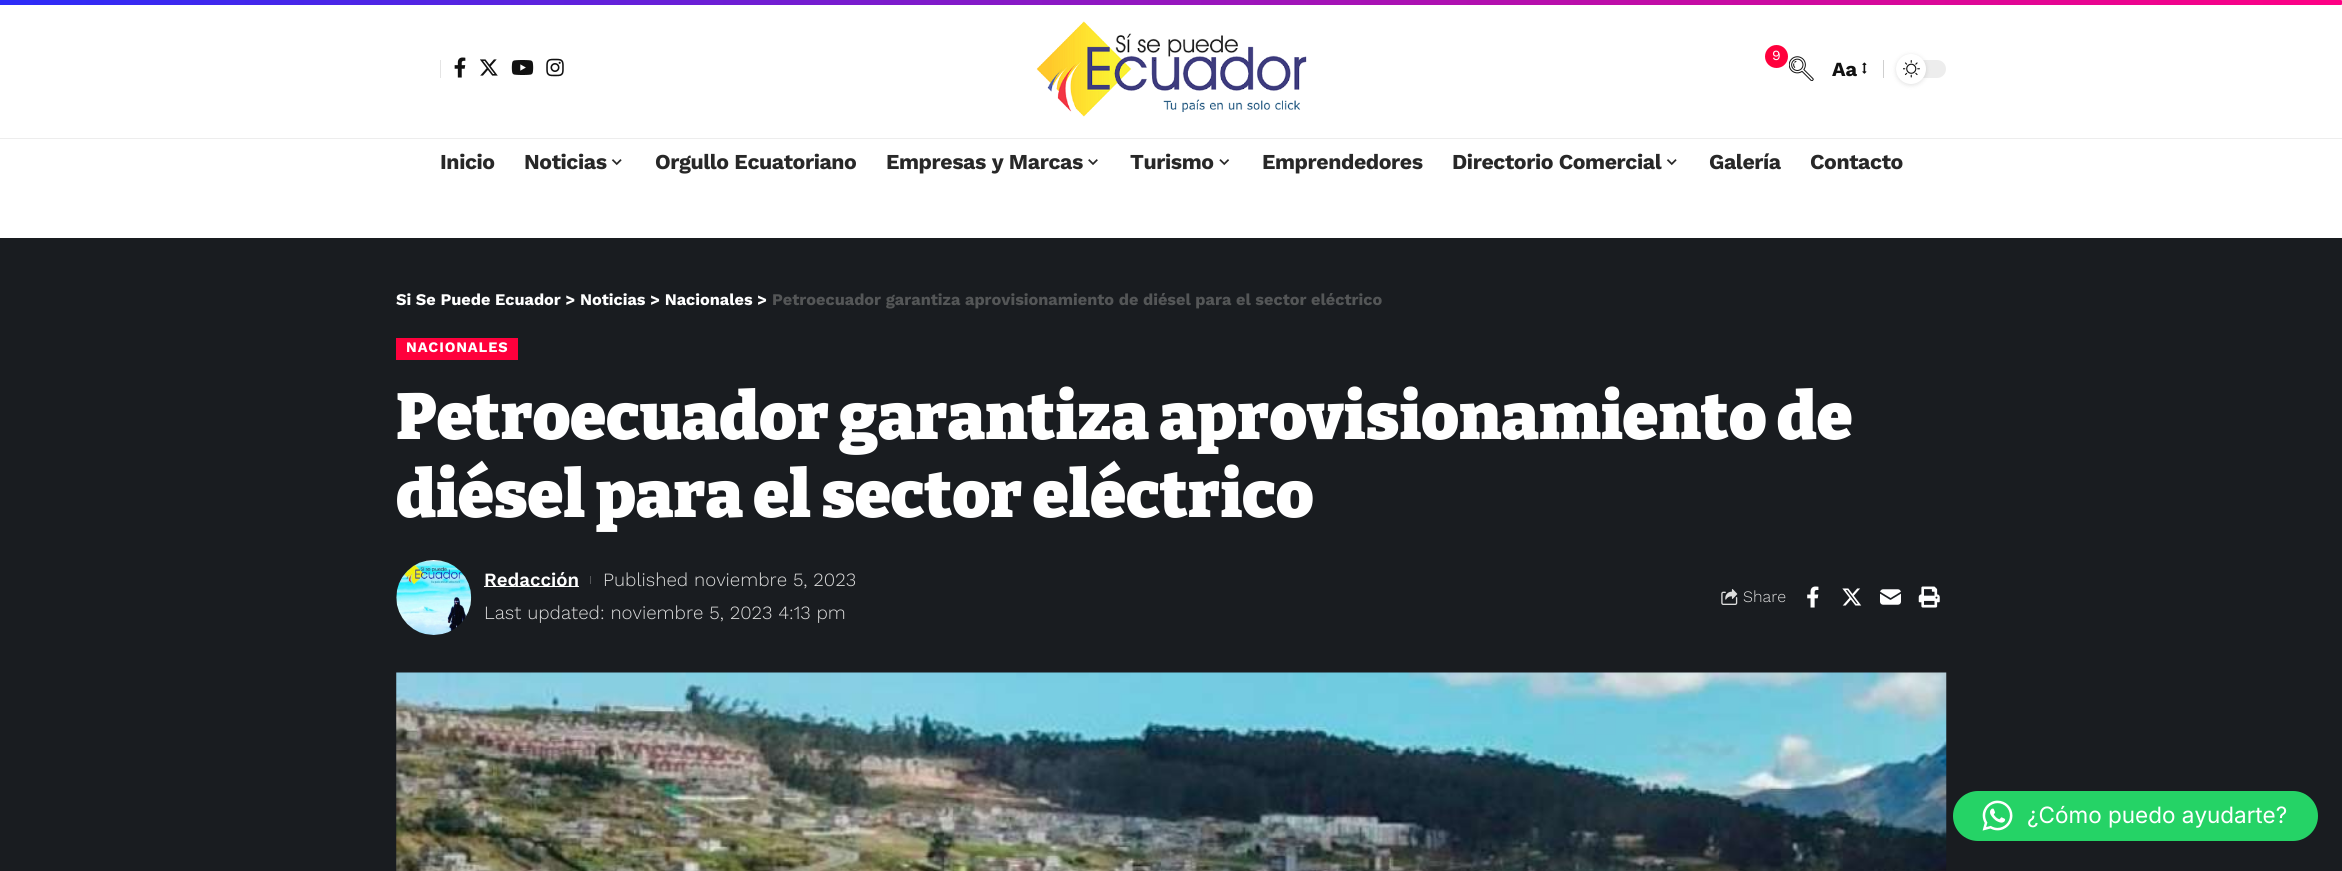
import math
import cairocffi as cairo

surface = cairo.ImageSurface(cairo.FORMAT_RGB24, 2342, 871)
cr = cairo.Context(surface)
options = cairo.FontOptions()
options.set_hint_metrics(cairo.HINT_METRICS_OFF)
options.set_hint_style(cairo.HINT_STYLE_NONE)
cr.set_font_options(options)
cr.set_miter_limit(4)


def use_color(code):
    cr.set_source_rgb(*(v / 255 for v in bytes.fromhex(code[-6:])))


def spaced_text(x, y, s, letter, word):
    cr.move_to(x, y)
    for ch in s:
        cr.show_text(ch)
        cr.rel_move_to(letter + word * (ch == ' '), 0)


def round_rect(x, y, w, h, r):
    cr.new_sub_path()
    for i, (u, v) in enumerate([(x + w - r, y + h - r), (x + r, y + h - r), (x + r, y + r), (x + w - r, y + r)]):
        cr.arc(u, v, r, i * math.pi / 2, (i + 1) * math.pi / 2)
    cr.close_path()


def shadow(x, y, w, h, r, blur, alpha):
    cr.push_group_with_content(cairo.CONTENT_ALPHA)
    cr.set_operator(cairo.OPERATOR_SOURCE)
    for i in range(15, -16, -2):
        e = blur * i / 6
        if min(w, h) + 2 * e > 0:
            cr.set_source_rgba(0, 0, 0, alpha * math.erfc((i - 1) / 8.5) / 2)
            round_rect(x - e, y - e, w + 2 * e, h + 2 * e, max(0, min(r + e + blur * .6, min(w, h) / 2 + e)))
            cr.fill()
    cr.mask(cr.pop_group())


def picture(path, x, y, w, h):
    cr.save()
    cr.set_source_surface(cairo.ImageSurface.create_from_png(path), x, y)
    cr.rectangle(x, y, w, h)
    cr.fill()
    cr.restore()


use_color("#ffffff")
cr.paint()
gradient = cairo.LinearGradient(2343, 2.5, 0, 2.5)
gradient.add_color_stop_rgba(0, 1, 0, 0.518, 1)
gradient.add_color_stop_rgba(1, 0.173, 0.173, 0.973, 1)
cr.set_source(gradient)
cr.new_path()
cr.move_to(0, 0)
cr.line_to(2340.5, 0)
cr.curve_to(2342, 0, 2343, 1, 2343, 2.5)
cr.curve_to(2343, 4, 2342, 5, 2340.5, 5)
cr.line_to(0, 5)
cr.close_path()
cr.fill()
use_color("#e4e4e4")
cr.rectangle(440, 60, 1, 18)
cr.fill()
picture("img1.png", 454, 57, 12, 21)
picture("img2.png", 480, 59, 18, 17)
picture("img3.png", 511, 60, 23, 15)
picture("img4.png", 546, 58, 18, 19)
picture("img5.png", 1036, 21, 271, 96)
use_color("#ff003c")
cr.arc(1776.5, 56.5, 11.5, 0, 2 * math.pi)
cr.fill()
cr.select_font_face("Work Sans")
cr.set_font_size(14)
use_color("#ffffff")
cr.move_to(1772, 60)
cr.show_text("9")
picture("img6.png", 1789, 56, 25, 25)
cr.select_font_face("Work Sans", cairo.FONT_SLANT_NORMAL, cairo.FONT_WEIGHT_BOLD)
cr.set_font_size(20)
use_color("#111111")
cr.move_to(1832, 76)
cr.show_text("Aa")
picture("img7.png", 1862, 62, 5, 12)
use_color("#cfcfcf")
cr.rectangle(1883, 60, 1, 18)
cr.fill()
use_color("#ededed")
round_rect(1896, 60, 50, 18, 9)
cr.fill()
use_color("#000000")
shadow(1896, 55, 30, 30, 15, 2.5, 0.12)
use_color("#ffffff")
cr.arc(1911, 69, 15, 0, 2 * math.pi)
cr.fill()
picture("img8.png", 1903, 60, 17, 18)
use_color("#ededed")
cr.rectangle(0, 138, 2342, 1)
cr.fill()
cr.set_font_size(21.25)
use_color("#282828")
spaced_text(440, 169, "Inicio", -0.4, 0)
spaced_text(524, 169, "Noticias", -0.4, 0)
picture("img9.png", 611, 159, 11, 7)
spaced_text(655, 169, "Orgullo Ecuatoriano", -0.4, 0)
spaced_text(886, 169, "Empresas y Marcas", -0.4, 0)
picture("img10.png", 1088, 159, 10, 6)
spaced_text(1130, 169, "Turismo", -0.4, 0)
picture("img11.png", 1219, 159, 11, 7)
spaced_text(1262, 169, "Emprendedores", -0.4, 0)
spaced_text(1452, 169, "Directorio Comercial", -0.4, 0)
picture("img9.png", 1666, 159, 11, 7)
spaced_text(1709, 169, "Galería", -0.4, 0)
spaced_text(1810, 169, "Contacto", -0.4, 0)
use_color("#191c20")
cr.rectangle(0, 238, 2342, 633)
cr.fill()
cr.set_font_size(16.25)
use_color("#ffffff")
cr.move_to(396, 305)
cr.show_text("Si Se Puede Ecuador > Noticias > Nacionales >")
use_color("#545657")
cr.move_to(772, 305)
cr.show_text("Petroecuador garantiza aprovisionamiento de diésel para el sector eléctrico")
use_color("#ff003c")
cr.rectangle(396, 338, 122, 22)
cr.fill()
cr.set_font_size(14.5)
use_color("#ffffff")
spaced_text(406, 352, "NACIONALES", 0.9, 0)
cr.select_font_face("Bitter Black")
cr.set_font_size(65)
cr.move_to(396, 439)
cr.show_text("Petroecuador garantiza aprovisionamiento de")
cr.move_to(396, 517)
cr.show_text("diésel para el sector eléctrico")
picture("img12.png", 396, 560, 76, 75)
cr.rectangle(484, 586, 95, 1)
cr.fill()
cr.select_font_face("Work Sans SemiBold")
cr.set_font_size(18.7)
cr.move_to(484, 586)
cr.show_text("Redacción")
use_color("#545659")
cr.rectangle(590, 576, 1, 8)
cr.fill()
cr.select_font_face("Work Sans Light")
use_color("#dddddd")
cr.move_to(603, 586)
cr.show_text("Published noviembre 5, 2023")
cr.move_to(484, 619)
cr.show_text("Last updated: noviembre 5, 2023 4:13 pm")
picture("img13.png", 1721, 589, 17, 16)
cr.set_font_size(16)
cr.move_to(1743, 602)
cr.show_text("Share")
picture("img14.png", 1807, 586, 12, 22)
picture("img15.png", 1842, 588, 20, 18)
picture("img16.png", 1880, 589, 21, 16)
picture("img17.png", 1918, 586, 22, 22)
picture("img18.png", 396, 672, 1551, 199)
use_color("#25d366")
round_rect(1953, 791, 365, 50, 25)
cr.fill()
picture("img19.png", 1982, 800, 31, 31)
cr.select_font_face("Inter")
cr.set_font_size(22.5)
use_color("#ffffff")
cr.move_to(2027, 823)
cr.show_text("¿Cómo puedo ayudarte?")
surface.write_to_png("result.png")
